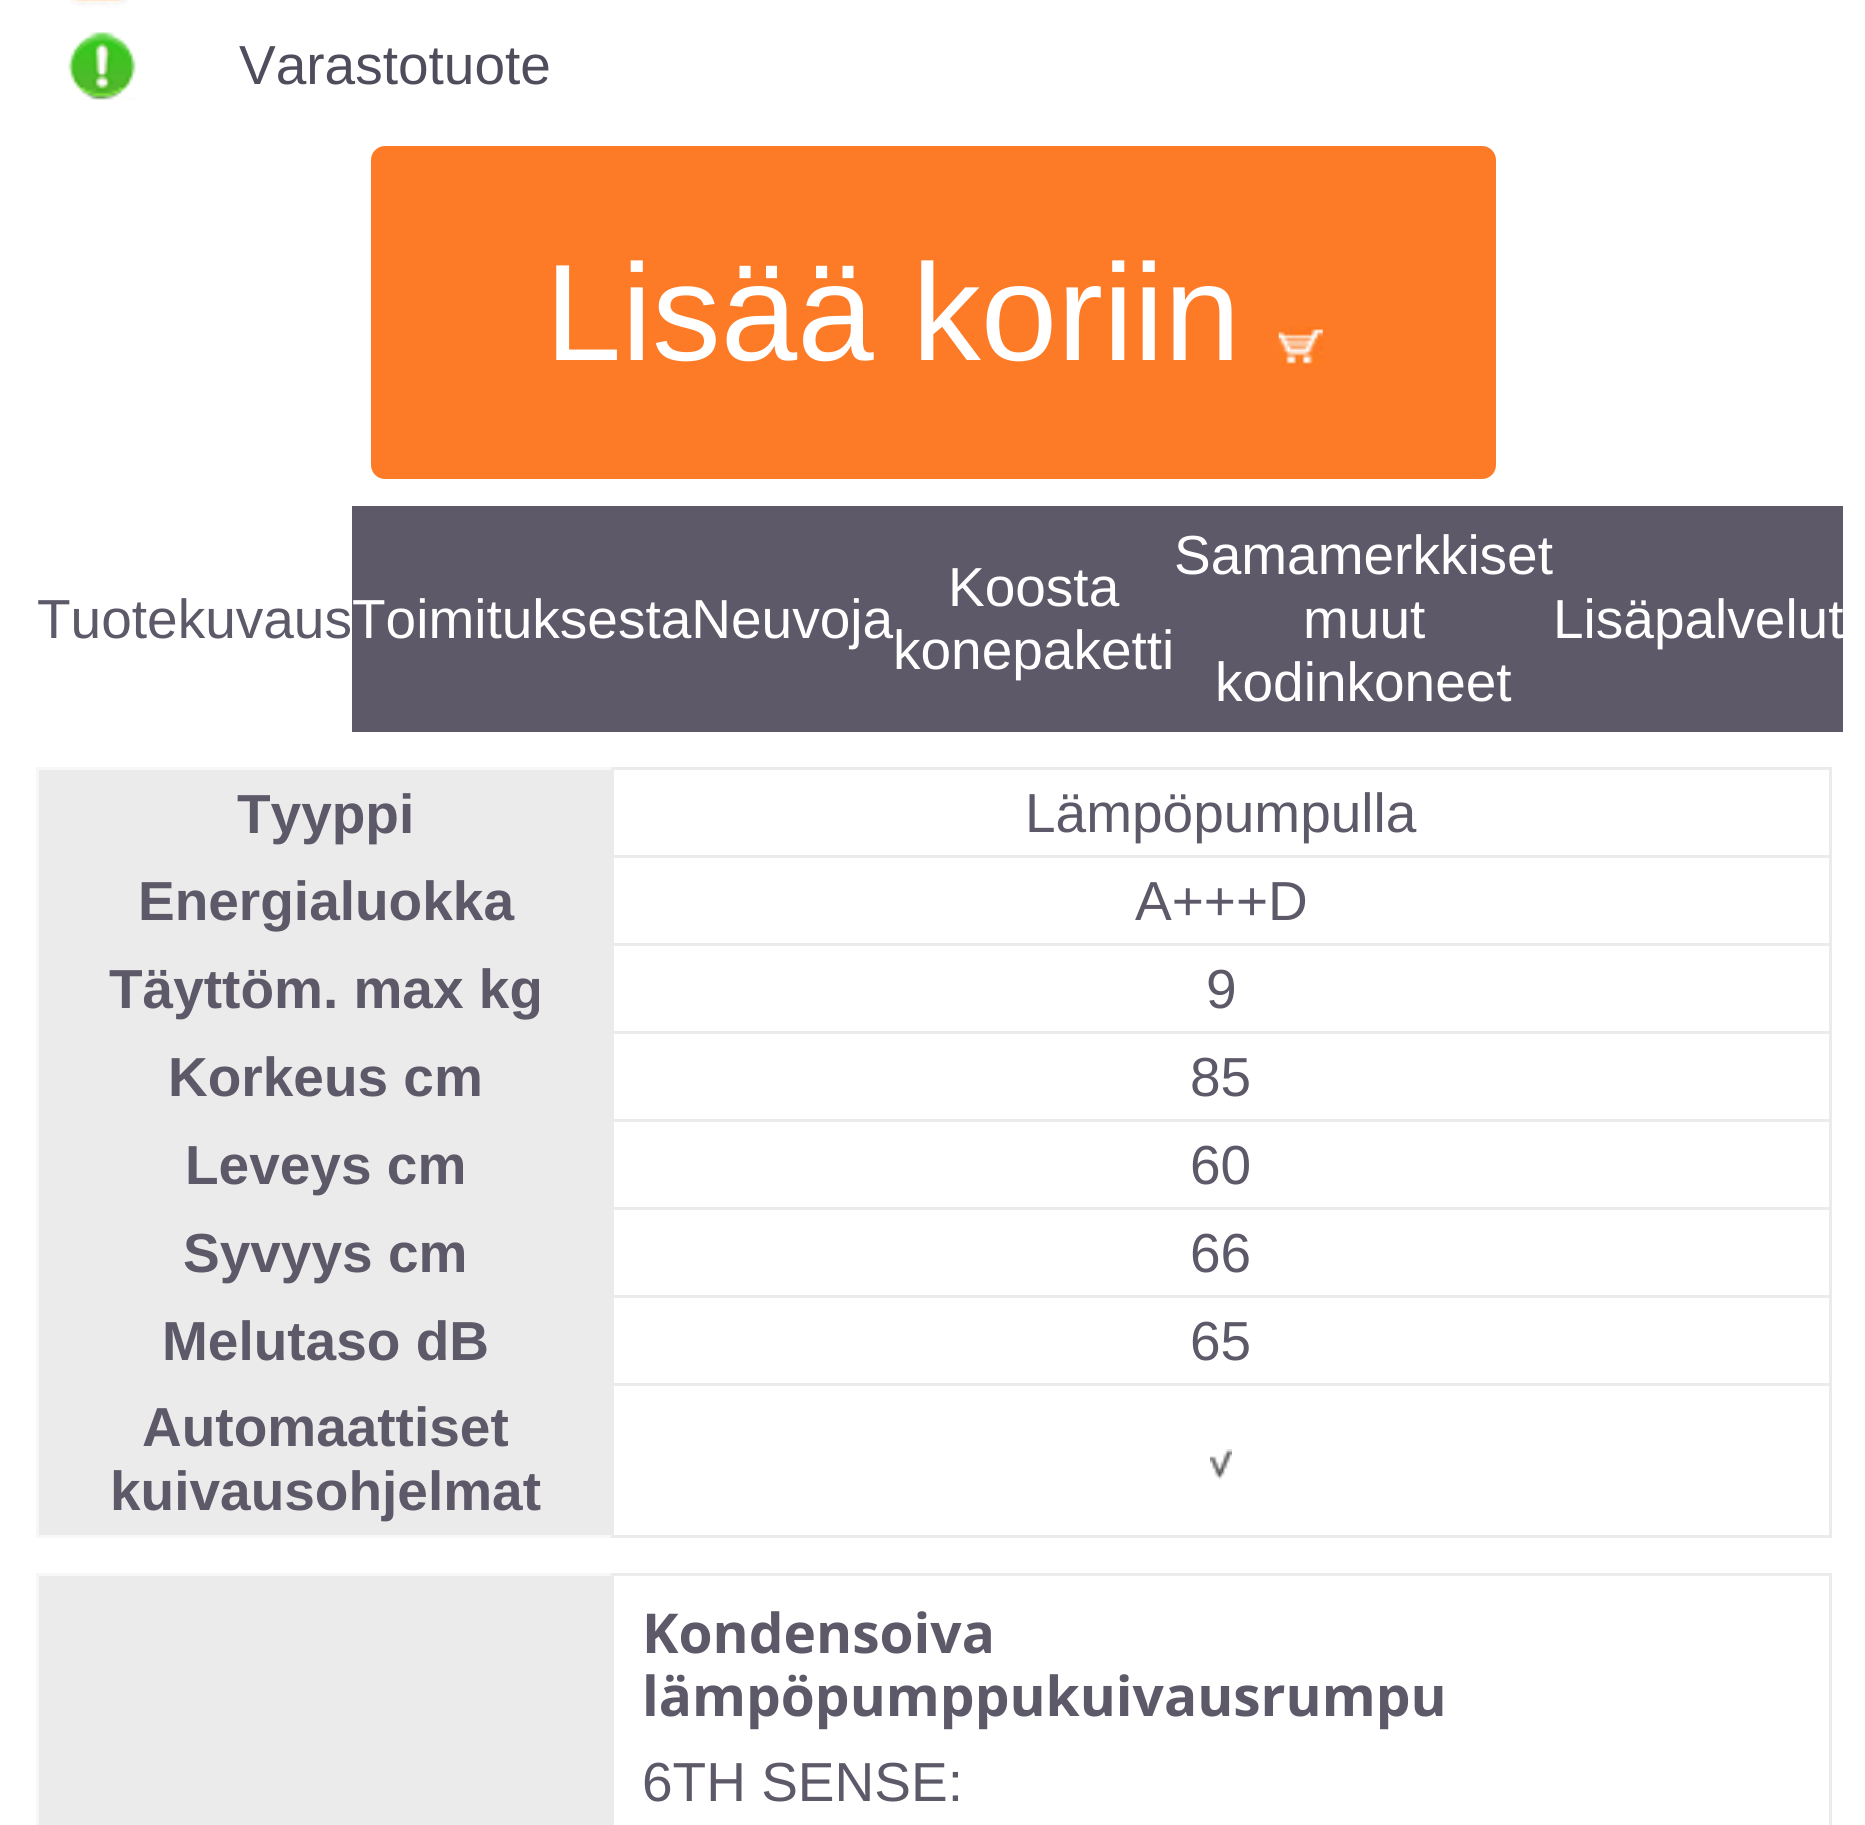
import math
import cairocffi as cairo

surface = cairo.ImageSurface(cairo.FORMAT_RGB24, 1865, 1825)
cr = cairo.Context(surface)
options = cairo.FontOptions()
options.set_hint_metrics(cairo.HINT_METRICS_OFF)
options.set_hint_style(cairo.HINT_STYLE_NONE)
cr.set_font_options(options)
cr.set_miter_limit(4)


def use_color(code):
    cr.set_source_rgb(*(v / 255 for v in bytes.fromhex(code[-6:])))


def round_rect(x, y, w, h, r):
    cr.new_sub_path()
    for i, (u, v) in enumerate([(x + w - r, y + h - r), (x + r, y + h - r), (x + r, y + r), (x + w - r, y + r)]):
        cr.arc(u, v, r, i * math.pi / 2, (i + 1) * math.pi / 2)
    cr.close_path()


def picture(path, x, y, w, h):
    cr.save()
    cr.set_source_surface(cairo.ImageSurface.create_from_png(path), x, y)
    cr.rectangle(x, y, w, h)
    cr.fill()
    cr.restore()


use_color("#ffffff")
cr.paint()
picture("img1.png", 70, 0, 58, 8)
picture("img2.png", 68, 32, 68, 68)
cr.select_font_face("Liberation Sans")
cr.set_font_size(55)
use_color("#4f4d5b")
cr.move_to(239, 84)
cr.show_text("Varastotuote")
use_color("#fd7b27")
round_rect(371, 146, 1125, 333, 14)
cr.fill()
cr.set_font_size(137.5)
use_color("#ffffff")
cr.move_to(545, 360)
cr.show_text("Lisää koriin")
picture("img3.png", 1278, 327, 45, 39)
cr.set_font_size(55)
use_color("#5d5968")
cr.move_to(37, 638)
cr.show_text("Tuotekuvaus")
cr.rectangle(352, 506, 1491, 226)
cr.fill()
use_color("#ffffff")
cr.move_to(352, 638)
cr.show_text("ToimituksestaNeuvoja")
cr.move_to(948, 606)
cr.show_text("Koosta")
cr.move_to(893, 669)
cr.show_text("konepaketti")
cr.move_to(1174, 574)
cr.show_text("Samamerkkiset")
cr.move_to(1303, 638)
cr.show_text("muut")
cr.move_to(1215, 701)
cr.show_text("kodinkoneet")
cr.move_to(1553, 638)
cr.show_text("Lisäpalvelut")
use_color("#f7f7f7")
cr.rectangle(36, 767, 575, 3)
cr.fill()
cr.rectangle(36, 1535, 575, 3)
cr.fill()
cr.rectangle(36, 767, 3, 770)
cr.fill()
use_color("#ebebeb")
cr.rectangle(39, 770, 572, 765)
cr.fill()
cr.select_font_face("Liberation Sans", cairo.FONT_SLANT_NORMAL, cairo.FONT_WEIGHT_BOLD)
use_color("#5d5968")
cr.move_to(237, 833)
cr.show_text("Tyyppi")
use_color("#ebebeb")
cr.rectangle(611, 767, 1221, 3)
cr.fill()
cr.rectangle(611, 855, 1221, 3)
cr.fill()
cr.rectangle(611, 943, 1221, 3)
cr.fill()
cr.rectangle(611, 1031, 1221, 3)
cr.fill()
cr.rectangle(611, 1119, 1221, 3)
cr.fill()
cr.rectangle(611, 1207, 1221, 3)
cr.fill()
cr.rectangle(611, 1295, 1221, 3)
cr.fill()
cr.rectangle(611, 1383, 1221, 3)
cr.fill()
cr.rectangle(1829, 1383, 3, 154)
cr.fill()
cr.rectangle(1829, 1295, 3, 91)
cr.fill()
cr.rectangle(1829, 1207, 3, 91)
cr.fill()
cr.rectangle(1829, 1119, 3, 91)
cr.fill()
cr.rectangle(1829, 1031, 3, 91)
cr.fill()
cr.rectangle(1829, 943, 3, 91)
cr.fill()
cr.rectangle(1829, 855, 3, 91)
cr.fill()
cr.rectangle(1829, 767, 3, 91)
cr.fill()
cr.rectangle(611, 1535, 1221, 3)
cr.fill()
cr.rectangle(611, 1383, 3, 154)
cr.fill()
cr.rectangle(611, 1295, 3, 91)
cr.fill()
cr.rectangle(611, 1207, 3, 91)
cr.fill()
cr.rectangle(611, 1119, 3, 91)
cr.fill()
cr.rectangle(611, 1031, 3, 91)
cr.fill()
cr.rectangle(611, 943, 3, 91)
cr.fill()
cr.rectangle(611, 855, 3, 91)
cr.fill()
cr.rectangle(611, 767, 3, 91)
cr.fill()
cr.select_font_face("Liberation Sans")
use_color("#5d5968")
cr.move_to(1025, 832)
cr.show_text("Lämpöpumpulla")
cr.select_font_face("Liberation Sans", cairo.FONT_SLANT_NORMAL, cairo.FONT_WEIGHT_BOLD)
cr.move_to(138, 920)
cr.show_text("Energialuokka")
cr.select_font_face("Liberation Sans")
cr.move_to(1135, 920)
cr.show_text("A+++D")
cr.select_font_face("Liberation Sans", cairo.FONT_SLANT_NORMAL, cairo.FONT_WEIGHT_BOLD)
cr.move_to(109, 1008)
cr.show_text("Täyttöm. max kg")
cr.select_font_face("Liberation Sans")
cr.move_to(1206, 1008)
cr.show_text("9")
cr.select_font_face("Liberation Sans", cairo.FONT_SLANT_NORMAL, cairo.FONT_WEIGHT_BOLD)
cr.move_to(168, 1096)
cr.show_text("Korkeus cm")
cr.select_font_face("Liberation Sans")
cr.move_to(1190, 1096)
cr.show_text("85")
cr.select_font_face("Liberation Sans", cairo.FONT_SLANT_NORMAL, cairo.FONT_WEIGHT_BOLD)
cr.move_to(185, 1184)
cr.show_text("Leveys cm")
cr.select_font_face("Liberation Sans")
cr.move_to(1190, 1184)
cr.show_text("60")
cr.select_font_face("Liberation Sans", cairo.FONT_SLANT_NORMAL, cairo.FONT_WEIGHT_BOLD)
cr.move_to(183, 1272)
cr.show_text("Syvyys cm")
cr.select_font_face("Liberation Sans")
cr.move_to(1190, 1272)
cr.show_text("66")
cr.select_font_face("Liberation Sans", cairo.FONT_SLANT_NORMAL, cairo.FONT_WEIGHT_BOLD)
cr.move_to(162, 1360)
cr.show_text("Melutaso dB")
cr.select_font_face("Liberation Sans")
cr.move_to(1190, 1360)
cr.show_text("65")
cr.select_font_face("Liberation Sans", cairo.FONT_SLANT_NORMAL, cairo.FONT_WEIGHT_BOLD)
cr.move_to(142, 1446)
cr.show_text("Automaattiset")
cr.move_to(110, 1510)
cr.show_text("kuivausohjelmat")
picture("img4.png", 1210, 1449, 22, 31)
use_color("#f7f7f7")
cr.rectangle(36, 1573, 575, 3)
cr.fill()
cr.rectangle(36, 1573, 3, 252)
cr.fill()
use_color("#ebebeb")
cr.rectangle(39, 1576, 572, 249)
cr.fill()
cr.rectangle(611, 1573, 1221, 3)
cr.fill()
cr.rectangle(1829, 1573, 3, 252)
cr.fill()
cr.rectangle(611, 1573, 3, 252)
cr.fill()
cr.select_font_face("Open Sans", cairo.FONT_SLANT_NORMAL, cairo.FONT_WEIGHT_BOLD)
use_color("#5d5968")
cr.move_to(642, 1653)
cr.show_text("Kondensoiva")
cr.move_to(642, 1716)
cr.show_text("lämpöpumppukuivausrumpu")
cr.select_font_face("Liberation Sans")
cr.move_to(642, 1801)
cr.show_text("6TH SENSE:")
surface.write_to_png("result.png")
